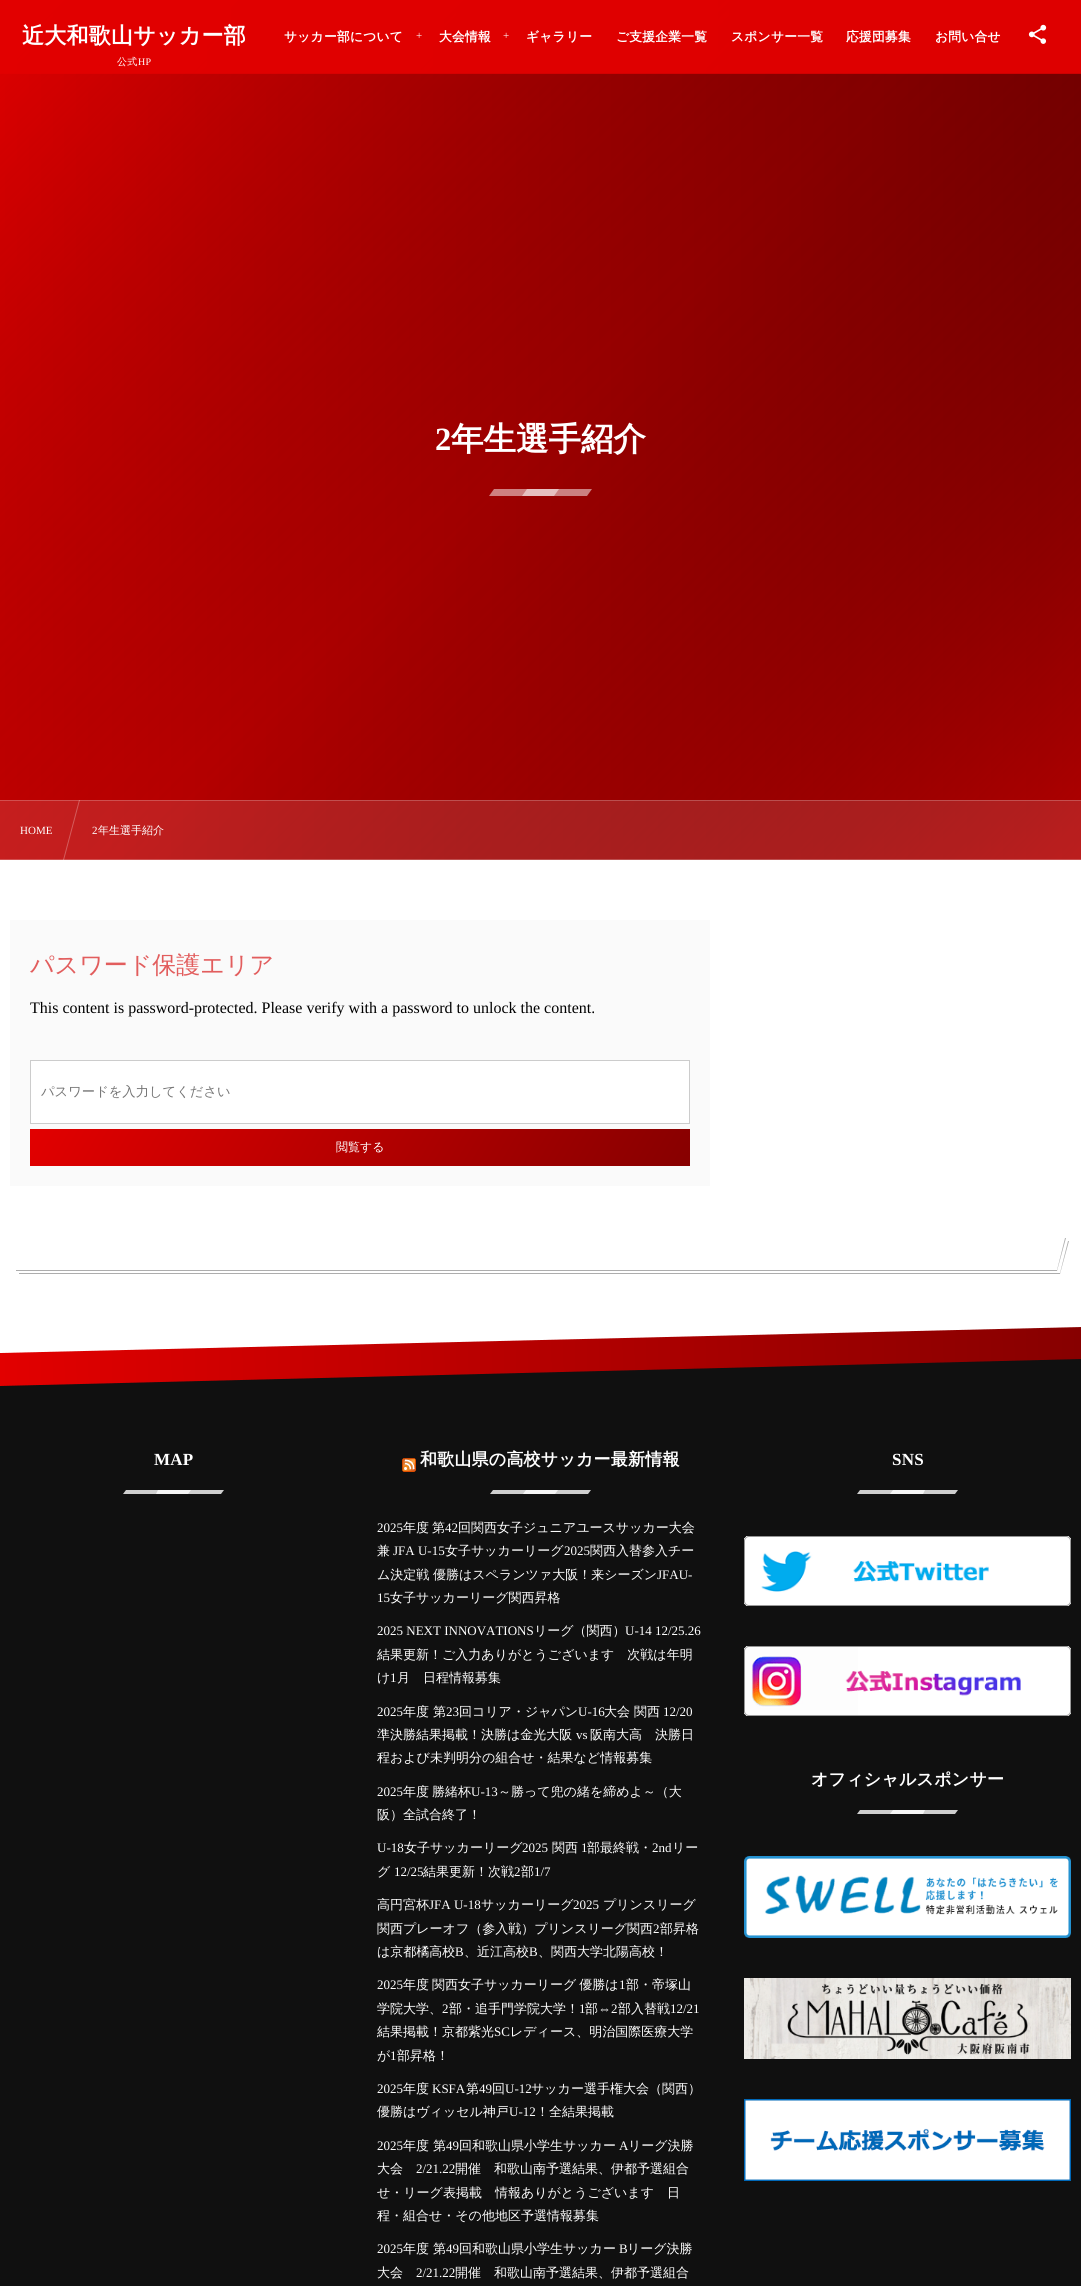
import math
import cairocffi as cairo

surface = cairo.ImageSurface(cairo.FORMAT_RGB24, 1081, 2286)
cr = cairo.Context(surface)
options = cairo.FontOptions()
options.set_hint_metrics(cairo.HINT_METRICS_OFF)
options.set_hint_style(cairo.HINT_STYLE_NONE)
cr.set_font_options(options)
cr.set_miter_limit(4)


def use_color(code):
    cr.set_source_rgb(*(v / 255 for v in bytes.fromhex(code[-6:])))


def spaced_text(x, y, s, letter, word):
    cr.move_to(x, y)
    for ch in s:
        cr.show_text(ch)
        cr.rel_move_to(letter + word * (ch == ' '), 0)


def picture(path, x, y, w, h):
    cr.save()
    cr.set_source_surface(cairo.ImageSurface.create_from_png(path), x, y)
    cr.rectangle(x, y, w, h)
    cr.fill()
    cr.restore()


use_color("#ffffff")
cr.paint()
gradient = cairo.LinearGradient(0, 430, 1081, 430)
gradient.add_color_stop_rgba(0, 0.886, 0, 0, 1)
gradient.add_color_stop_rgba(1, 0.529, 0, 0, 1)
cr.set_source(gradient)
cr.rectangle(0, 0, 1081, 860)
cr.fill()
gradient = cairo.LinearGradient(55, -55, 1026, 915)
gradient.add_color_stop_rgba(0, 0.886, 0, 0, 0.48)
gradient.add_color_stop_rgba(0.5, 0, 0, 0, 0.14)
gradient.add_color_stop_rgba(1, 0.886, 0, 0, 0.48)
cr.set_source(gradient)
cr.rectangle(0, 0, 1081, 860)
cr.fill()
cr.set_source_rgba(0.886, 0, 0, 0.8)
cr.rectangle(0, 73, 1081, 1)
cr.fill()
cr.set_source_rgba(0.886, 0, 0, 0.96)
cr.rectangle(0, 0, 1081, 73)
cr.fill()
cr.select_font_face("WenQuanYi Zen Hei", cairo.FONT_SLANT_NORMAL, cairo.FONT_WEIGHT_BOLD)
cr.set_font_size(22)
use_color("#ffffff")
spaced_text(22, 43, "近大和歌山サッカー部", 0.25, 0)
cr.select_font_face("WenQuanYi Zen Hei Medium")
cr.set_font_size(10)
spaced_text(117, 65, "公式", 0.25, 0)
cr.select_font_face("Liberation Serif")
spaced_text(138, 65, "HP", 0.25, 0)
cr.select_font_face("WenQuanYi Zen Hei", cairo.FONT_SLANT_NORMAL, cairo.FONT_WEIGHT_BOLD)
cr.set_font_size(12.75)
spaced_text(284, 41, "サッカー部について", 0.25, 0)
cr.select_font_face("Liberation Serif")
cr.set_font_size(11)
spaced_text(416, 39, "+", 0.25, 0)
cr.select_font_face("WenQuanYi Zen Hei", cairo.FONT_SLANT_NORMAL, cairo.FONT_WEIGHT_BOLD)
cr.set_font_size(12.75)
spaced_text(439, 41, "大会情報", 0.25, 0)
cr.select_font_face("Liberation Serif")
cr.set_font_size(11)
spaced_text(503, 39, "+", 0.25, 0)
cr.select_font_face("WenQuanYi Zen Hei", cairo.FONT_SLANT_NORMAL, cairo.FONT_WEIGHT_BOLD)
cr.set_font_size(12.75)
spaced_text(526, 41, "ギャラリー", 0.25, 0)
spaced_text(616, 41, "ご支援企業一覧", 0.25, 0)
spaced_text(731, 41, "スポンサー一覧", 0.25, 0)
spaced_text(846, 41, "応援団募集", 0.25, 0)
spaced_text(935, 41, "お問い合せ", 0.25, 0)
picture("img1.png", 1028, 24, 19, 20)
cr.select_font_face("Liberation Serif", cairo.FONT_SLANT_NORMAL, cairo.FONT_WEIGHT_BOLD)
cr.set_font_size(32.5)
cr.move_to(435, 450)
cr.show_text("2")
cr.select_font_face("WenQuanYi Zen Hei", cairo.FONT_SLANT_NORMAL, cairo.FONT_WEIGHT_BOLD)
cr.move_to(451, 450)
cr.show_text("年生選手紹介")
cr.set_source_rgba(1, 1, 1, 0.5)
cr.new_path()
cr.move_to(494, 489)
cr.line_to(559, 489)
cr.line_to(554, 496)
cr.line_to(489, 496)
cr.close_path()
cr.fill()
cr.new_path()
cr.move_to(527, 489)
cr.line_to(592, 489)
cr.line_to(587, 496)
cr.line_to(522, 496)
cr.close_path()
cr.fill()
cr.set_source_rgba(1, 1, 1, 0.12)
cr.rectangle(0, 800, 1081, 60)
cr.fill()
cr.set_source_rgba(1, 1, 1, 0.22)
cr.rectangle(0, 800, 1081, 1)
cr.fill()
cr.rectangle(0, 859, 1081, 1)
cr.fill()
cr.select_font_face("Liberation Serif")
cr.set_font_size(11)
use_color("#ffffff")
cr.move_to(20, 834)
cr.show_text("HOME")
cr.set_source_rgba(1, 1, 1, 0.28)
cr.new_path()
cr.move_to(79, 800)
cr.line_to(80, 800)
cr.line_to(64, 860)
cr.line_to(63, 860)
cr.close_path()
cr.fill()
use_color("#ffffff")
cr.move_to(92, 834)
cr.show_text("2")
cr.select_font_face("WenQuanYi Zen Hei Medium")
cr.move_to(98, 834)
cr.show_text("年生選手紹介")
use_color("#fafafa")
cr.rectangle(10, 920, 700, 266)
cr.fill()
cr.set_font_size(24)
use_color("#e25d5d")
cr.move_to(30, 973)
cr.show_text("パスワード保護エリア")
cr.select_font_face("Liberation Serif")
cr.set_font_size(16)
use_color("#000000")
cr.move_to(30, 1013)
cr.show_text("This content is password-protected. Please verify with a password to unlock the content.")
use_color("#ffffff")
cr.rectangle(30.5, 1060.5, 659, 63)
cr.fill_preserve()
use_color("#cccccc")
cr.set_line_width(1)
cr.stroke()
cr.select_font_face("WenQuanYi Zen Hei Medium")
cr.set_font_size(13.3)
use_color("#757575")
cr.move_to(41, 1096)
cr.show_text("パスワードを入力してください")
gradient = cairo.LinearGradient(104, 1000, 616, 1295)
gradient.add_color_stop_rgba(0, 0.886, 0, 0, 1)
gradient.add_color_stop_rgba(1, 0.529, 0, 0, 1)
cr.set_source(gradient)
cr.rectangle(30, 1129, 660, 37)
cr.fill()
cr.set_font_size(12)
use_color("#ffffff")
cr.move_to(336, 1151)
cr.show_text("閲覧する")
use_color("#adadad")
cr.new_path()
cr.move_to(16, 1270)
cr.line_to(16, 1271)
cr.line_to(1057, 1271)
cr.line_to(1066, 1238)
cr.line_to(1065, 1238)
cr.line_to(1057, 1270)
cr.close_path()
cr.fill()
cr.new_path()
cr.move_to(19, 1273)
cr.line_to(19, 1274)
cr.line_to(1060, 1274)
cr.line_to(1069, 1241)
cr.line_to(1068, 1241)
cr.line_to(1060, 1273)
cr.close_path()
cr.fill()
use_color("#101010")
cr.rectangle(0, 1359, 1081, 927)
cr.fill()
gradient = cairo.LinearGradient(0, 1369, 1081, 1343)
gradient.add_color_stop_rgba(0, 0.886, 0, 0, 1)
gradient.add_color_stop_rgba(1, 0.529, 0, 0, 1)
cr.set_source(gradient)
cr.new_path()
cr.move_to(0, 1353)
cr.line_to(1081, 1327)
cr.line_to(1081, 1359)
cr.line_to(0, 1386)
cr.close_path()
cr.fill()
cr.select_font_face("Liberation Serif", cairo.FONT_SLANT_NORMAL, cairo.FONT_WEIGHT_BOLD)
cr.set_font_size(17)
use_color("#ffffff")
spaced_text(154, 1465, "MAP", 0.2, 0)
use_color("#cfcfcf")
cr.new_path()
cr.move_to(126, 1490)
cr.line_to(191, 1490)
cr.line_to(188, 1494)
cr.line_to(123, 1494)
cr.close_path()
cr.fill()
cr.set_source_rgba(1, 1, 1, 0.8)
cr.new_path()
cr.move_to(158, 1490)
cr.line_to(224, 1490)
cr.line_to(221, 1494)
cr.line_to(156, 1494)
cr.close_path()
cr.fill()
picture("img2.png", 402, 1458, 14, 14)
cr.select_font_face("WenQuanYi Zen Hei", cairo.FONT_SLANT_NORMAL, cairo.FONT_WEIGHT_BOLD)
use_color("#ffffff")
spaced_text(420, 1465, "和歌山県の高校サッカー最新情報", 0.2, 0)
use_color("#cfcfcf")
cr.new_path()
cr.move_to(493, 1490)
cr.line_to(558, 1490)
cr.line_to(555, 1494)
cr.line_to(490, 1494)
cr.close_path()
cr.fill()
cr.set_source_rgba(1, 1, 1, 0.8)
cr.new_path()
cr.move_to(526, 1490)
cr.line_to(591, 1490)
cr.line_to(588, 1494)
cr.line_to(523, 1494)
cr.close_path()
cr.fill()
cr.select_font_face("Liberation Serif")
cr.set_font_size(13)
use_color("#ffffff")
cr.move_to(377, 1532)
cr.show_text("2025")
cr.select_font_face("WenQuanYi Zen Hei Medium")
spaced_text(403, 1532, "年度 第", 0, -1)
cr.select_font_face("Liberation Serif")
cr.move_to(445, 1532)
cr.show_text("42")
cr.select_font_face("WenQuanYi Zen Hei Medium")
cr.move_to(458, 1532)
cr.show_text("回関西女子ジュニアユースサッカー大会")
cr.move_to(377, 1555)
cr.show_text("兼")
cr.select_font_face("Liberation Serif")
cr.move_to(393, 1555)
cr.show_text("JFA U-15")
cr.select_font_face("WenQuanYi Zen Hei Medium")
cr.move_to(445, 1555)
cr.show_text("女子サッカーリーグ")
cr.select_font_face("Liberation Serif")
cr.move_to(564, 1555)
cr.show_text("2025")
cr.select_font_face("WenQuanYi Zen Hei Medium")
cr.move_to(590, 1555)
cr.show_text("関西入替参入チー")
cr.move_to(377, 1579)
cr.show_text("ム決定戦")
cr.move_to(433, 1579)
cr.show_text("優勝はスペランツァ大阪！来シーズン")
cr.select_font_face("Liberation Serif")
cr.move_to(657, 1579)
cr.show_text("JFAU-")
cr.move_to(377, 1602)
cr.show_text("15")
cr.select_font_face("WenQuanYi Zen Hei Medium")
cr.move_to(390, 1602)
cr.show_text("女子サッカーリーグ関西昇格")
cr.select_font_face("Liberation Serif")
cr.move_to(377, 1635)
cr.show_text("2025 NEXT INNOVATIONS")
cr.select_font_face("WenQuanYi Zen Hei Medium")
cr.move_to(534, 1635)
cr.show_text("リーグ（関西）")
cr.select_font_face("Liberation Serif")
cr.move_to(625, 1635)
cr.show_text("U-14 12/25.26")
cr.select_font_face("WenQuanYi Zen Hei Medium")
cr.move_to(377, 1659)
cr.show_text("結果更新！ご入力ありがとうございます　次戦は年明")
cr.move_to(377, 1682)
cr.show_text("け")
cr.select_font_face("Liberation Serif")
cr.move_to(390, 1682)
cr.show_text("1")
cr.select_font_face("WenQuanYi Zen Hei Medium")
cr.move_to(397, 1682)
cr.show_text("月　日程情報募集")
cr.select_font_face("Liberation Serif")
cr.move_to(377, 1716)
cr.show_text("2025")
cr.select_font_face("WenQuanYi Zen Hei Medium")
cr.move_to(403, 1716)
cr.show_text("年度 第")
cr.select_font_face("Liberation Serif")
cr.move_to(446, 1716)
cr.show_text("23")
cr.select_font_face("WenQuanYi Zen Hei Medium")
cr.move_to(459, 1716)
cr.show_text("回コリア・ジャパン")
cr.select_font_face("Liberation Serif")
cr.move_to(578, 1716)
cr.show_text("U-16")
cr.select_font_face("WenQuanYi Zen Hei Medium")
cr.move_to(604, 1716)
cr.show_text("大会 関西")
cr.select_font_face("Liberation Serif")
cr.move_to(663, 1716)
cr.show_text("12/20")
cr.select_font_face("WenQuanYi Zen Hei Medium")
cr.move_to(377, 1739)
cr.show_text("準決勝結果掲載！決勝は金光大阪")
cr.select_font_face("Liberation Serif")
cr.move_to(576, 1739)
cr.show_text("vs")
cr.select_font_face("WenQuanYi Zen Hei Medium")
cr.move_to(590, 1739)
cr.show_text("阪南大高　決勝日")
cr.move_to(377, 1762)
cr.show_text("程および未判明分の組合せ・結果など情報募集")
cr.select_font_face("Liberation Serif")
cr.move_to(377, 1796)
cr.show_text("2025")
cr.select_font_face("WenQuanYi Zen Hei Medium")
spaced_text(403, 1796, "年度 勝緒杯", 0, -1)
cr.select_font_face("Liberation Serif")
cr.move_to(471, 1796)
cr.show_text("U-13")
cr.select_font_face("WenQuanYi Zen Hei Medium")
cr.move_to(498, 1796)
cr.show_text("～勝って兜の緒を締めよ～（大")
cr.move_to(377, 1819)
cr.show_text("阪）全試合終了！")
cr.select_font_face("Liberation Serif")
cr.move_to(377, 1852)
cr.show_text("U-18")
cr.select_font_face("WenQuanYi Zen Hei Medium")
cr.move_to(404, 1852)
cr.show_text("女子サッカーリーグ")
cr.select_font_face("Liberation Serif")
cr.move_to(522, 1852)
cr.show_text("2025")
cr.select_font_face("WenQuanYi Zen Hei Medium")
cr.move_to(552, 1852)
cr.show_text("関西")
cr.select_font_face("Liberation Serif")
cr.move_to(581, 1852)
cr.show_text("1")
cr.select_font_face("WenQuanYi Zen Hei Medium")
cr.move_to(587, 1852)
cr.show_text("部最終戦・")
cr.select_font_face("Liberation Serif")
cr.move_to(652, 1852)
cr.show_text("2nd")
cr.select_font_face("WenQuanYi Zen Hei Medium")
cr.move_to(672, 1852)
cr.show_text("リー")
cr.move_to(377, 1876)
cr.show_text("グ")
cr.select_font_face("Liberation Serif")
cr.move_to(394, 1876)
cr.show_text("12/25")
cr.select_font_face("WenQuanYi Zen Hei Medium")
cr.move_to(423, 1876)
cr.show_text("結果更新！次戦")
cr.select_font_face("Liberation Serif")
cr.move_to(514, 1876)
cr.show_text("2")
cr.select_font_face("WenQuanYi Zen Hei Medium")
cr.move_to(521, 1876)
cr.show_text("部")
cr.select_font_face("Liberation Serif")
cr.move_to(534, 1876)
cr.show_text("1/7")
cr.select_font_face("WenQuanYi Zen Hei Medium")
cr.move_to(377, 1909)
cr.show_text("高円宮杯")
cr.select_font_face("Liberation Serif")
cr.move_to(429, 1909)
cr.show_text("JFA U-18")
cr.select_font_face("WenQuanYi Zen Hei Medium")
cr.move_to(481, 1909)
cr.show_text("サッカーリーグ")
cr.select_font_face("Liberation Serif")
cr.move_to(573, 1909)
cr.show_text("2025")
cr.select_font_face("WenQuanYi Zen Hei Medium")
cr.move_to(603, 1909)
cr.show_text("プリンスリーグ")
cr.move_to(377, 1933)
cr.show_text("関西プレーオフ（参入戦）プリンスリーグ関西")
cr.select_font_face("Liberation Serif")
cr.move_to(653, 1933)
cr.show_text("2")
cr.select_font_face("WenQuanYi Zen Hei Medium")
cr.move_to(660, 1933)
cr.show_text("部昇格")
cr.move_to(377, 1956)
cr.show_text("は京都橘高校")
cr.select_font_face("Liberation Serif")
cr.move_to(455, 1956)
cr.show_text("B")
cr.select_font_face("WenQuanYi Zen Hei Medium")
cr.move_to(464, 1956)
cr.show_text("、近江高校")
cr.select_font_face("Liberation Serif")
cr.move_to(529, 1956)
cr.show_text("B")
cr.select_font_face("WenQuanYi Zen Hei Medium")
cr.move_to(538, 1956)
cr.show_text("、関西大学北陽高校！")
cr.select_font_face("Liberation Serif")
cr.move_to(377, 1989)
cr.show_text("2025")
cr.select_font_face("WenQuanYi Zen Hei Medium")
spaced_text(403, 1989, "年度 関西女子サッカーリーグ 優勝は", 0, -1)
cr.select_font_face("Liberation Serif")
cr.move_to(619, 1989)
cr.show_text("1")
cr.select_font_face("WenQuanYi Zen Hei Medium")
cr.move_to(626, 1989)
cr.show_text("部・帝塚山")
cr.move_to(377, 2013)
cr.show_text("学院大学、")
cr.select_font_face("Liberation Serif")
cr.move_to(442, 2013)
cr.show_text("2")
cr.select_font_face("WenQuanYi Zen Hei Medium")
cr.move_to(449, 2013)
cr.show_text("部・追手門学院大学！")
cr.select_font_face("Liberation Serif")
cr.move_to(579, 2013)
cr.show_text("1")
cr.select_font_face("WenQuanYi Zen Hei Medium")
cr.move_to(585, 2013)
cr.show_text("部")
cr.select_font_face("Liberation Serif")
cr.move_to(598, 2013)
cr.show_text("⇔2")
cr.select_font_face("WenQuanYi Zen Hei Medium")
cr.move_to(618, 2013)
cr.show_text("部入替戦")
cr.select_font_face("Liberation Serif")
cr.move_to(670, 2013)
cr.show_text("12/21")
cr.select_font_face("WenQuanYi Zen Hei Medium")
cr.move_to(377, 2036)
cr.show_text("結果掲載！京都紫光")
cr.select_font_face("Liberation Serif")
cr.move_to(494, 2036)
cr.show_text("SC")
cr.select_font_face("WenQuanYi Zen Hei Medium")
cr.move_to(510, 2036)
cr.show_text("レディース、明治国際医療大学")
cr.move_to(377, 2060)
cr.show_text("が")
cr.select_font_face("Liberation Serif")
cr.move_to(390, 2060)
cr.show_text("1")
cr.select_font_face("WenQuanYi Zen Hei Medium")
cr.move_to(397, 2060)
cr.show_text("部昇格！")
cr.select_font_face("Liberation Serif")
cr.move_to(377, 2093)
cr.show_text("2025")
cr.select_font_face("WenQuanYi Zen Hei Medium")
cr.move_to(403, 2093)
cr.show_text("年度")
cr.select_font_face("Liberation Serif")
cr.move_to(432, 2093)
cr.show_text("KSFA")
cr.select_font_face("WenQuanYi Zen Hei Medium")
cr.move_to(466, 2093)
cr.show_text("第")
cr.select_font_face("Liberation Serif")
cr.move_to(479, 2093)
cr.show_text("49")
cr.select_font_face("WenQuanYi Zen Hei Medium")
cr.move_to(492, 2093)
cr.show_text("回")
cr.select_font_face("Liberation Serif")
cr.move_to(505, 2093)
cr.show_text("U-12")
cr.select_font_face("WenQuanYi Zen Hei Medium")
cr.move_to(531, 2093)
cr.show_text("サッカー選手権大会（関西）")
cr.move_to(377, 2116)
cr.show_text("優勝はヴィッセル神戸")
cr.select_font_face("Liberation Serif")
cr.move_to(509, 2116)
cr.show_text("U-12")
cr.select_font_face("WenQuanYi Zen Hei Medium")
cr.move_to(536, 2116)
cr.show_text("！全結果掲載")
cr.select_font_face("Liberation Serif")
cr.move_to(377, 2150)
cr.show_text("2025")
cr.select_font_face("WenQuanYi Zen Hei Medium")
cr.move_to(403, 2150)
cr.show_text("年度 第")
cr.select_font_face("Liberation Serif")
cr.move_to(446, 2150)
cr.show_text("49")
cr.select_font_face("WenQuanYi Zen Hei Medium")
cr.move_to(459, 2150)
cr.show_text("回和歌山県小学生サッカー")
cr.select_font_face("Liberation Serif")
cr.move_to(619, 2150)
cr.show_text("A")
cr.select_font_face("WenQuanYi Zen Hei Medium")
cr.move_to(628, 2150)
cr.show_text("リーグ決勝")
cr.move_to(377, 2173)
cr.show_text("大会")
cr.select_font_face("Liberation Serif")
cr.move_to(416, 2173)
cr.show_text("2/21.22")
cr.select_font_face("WenQuanYi Zen Hei Medium")
cr.move_to(455, 2173)
cr.show_text("開催　和歌山南予選結果、伊都予選組合")
cr.move_to(377, 2197)
cr.show_text("せ・リーグ表掲載　情報ありがとうございます　日")
cr.move_to(377, 2220)
cr.show_text("程・組合せ・その他地区予選情報募集")
cr.select_font_face("Liberation Serif")
cr.move_to(377, 2253)
cr.show_text("2025")
cr.select_font_face("WenQuanYi Zen Hei Medium")
cr.move_to(403, 2253)
cr.show_text("年度 第")
cr.select_font_face("Liberation Serif")
cr.move_to(446, 2253)
cr.show_text("49")
cr.select_font_face("WenQuanYi Zen Hei Medium")
cr.move_to(459, 2253)
cr.show_text("回和歌山県小学生サッカー")
cr.select_font_face("Liberation Serif")
cr.move_to(619, 2253)
cr.show_text("B")
cr.select_font_face("WenQuanYi Zen Hei Medium")
cr.move_to(627, 2253)
cr.show_text("リーグ決勝")
cr.move_to(377, 2277)
cr.show_text("大会")
cr.select_font_face("Liberation Serif")
cr.move_to(416, 2277)
cr.show_text("2/21.22")
cr.select_font_face("WenQuanYi Zen Hei Medium")
cr.move_to(455, 2277)
cr.show_text("開催　和歌山南予選結果、伊都予選組合")
cr.select_font_face("Liberation Serif", cairo.FONT_SLANT_NORMAL, cairo.FONT_WEIGHT_BOLD)
cr.set_font_size(17)
spaced_text(892, 1465, "SNS", 0.2, 0)
use_color("#cfcfcf")
cr.new_path()
cr.move_to(860, 1490)
cr.line_to(925, 1490)
cr.line_to(923, 1494)
cr.line_to(857, 1494)
cr.close_path()
cr.fill()
cr.set_source_rgba(1, 1, 1, 0.8)
cr.new_path()
cr.move_to(893, 1490)
cr.line_to(958, 1490)
cr.line_to(955, 1494)
cr.line_to(890, 1494)
cr.close_path()
cr.fill()
picture("img3.png", 744, 1536, 327, 70)
picture("img4.png", 744, 1646, 327, 70)
cr.select_font_face("WenQuanYi Zen Hei", cairo.FONT_SLANT_NORMAL, cairo.FONT_WEIGHT_BOLD)
use_color("#ffffff")
spaced_text(811, 1785, "オフィシャルスポンサー", 0.2, 0)
use_color("#cfcfcf")
cr.new_path()
cr.move_to(860, 1810)
cr.line_to(925, 1810)
cr.line_to(923, 1814)
cr.line_to(857, 1814)
cr.close_path()
cr.fill()
cr.set_source_rgba(1, 1, 1, 0.8)
cr.new_path()
cr.move_to(893, 1810)
cr.line_to(958, 1810)
cr.line_to(955, 1814)
cr.line_to(890, 1814)
cr.close_path()
cr.fill()
picture("img5.png", 744, 1856, 327, 82)
picture("img6.png", 744, 1978, 327, 81)
picture("img7.png", 744, 2099, 327, 82)
surface.write_to_png("result.png")
